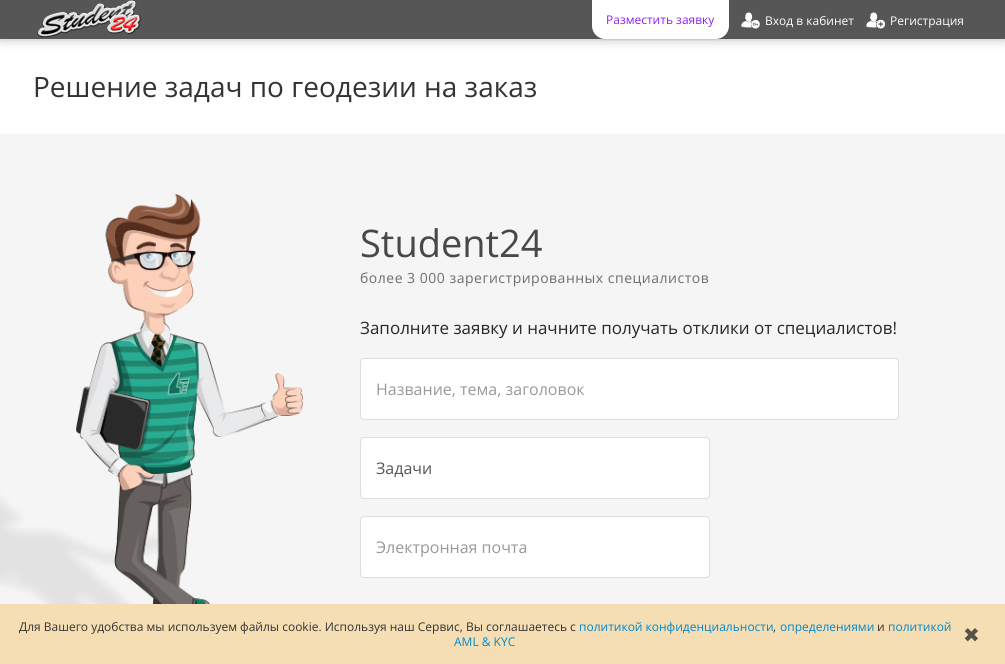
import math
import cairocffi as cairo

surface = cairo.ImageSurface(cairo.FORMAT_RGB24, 1005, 664)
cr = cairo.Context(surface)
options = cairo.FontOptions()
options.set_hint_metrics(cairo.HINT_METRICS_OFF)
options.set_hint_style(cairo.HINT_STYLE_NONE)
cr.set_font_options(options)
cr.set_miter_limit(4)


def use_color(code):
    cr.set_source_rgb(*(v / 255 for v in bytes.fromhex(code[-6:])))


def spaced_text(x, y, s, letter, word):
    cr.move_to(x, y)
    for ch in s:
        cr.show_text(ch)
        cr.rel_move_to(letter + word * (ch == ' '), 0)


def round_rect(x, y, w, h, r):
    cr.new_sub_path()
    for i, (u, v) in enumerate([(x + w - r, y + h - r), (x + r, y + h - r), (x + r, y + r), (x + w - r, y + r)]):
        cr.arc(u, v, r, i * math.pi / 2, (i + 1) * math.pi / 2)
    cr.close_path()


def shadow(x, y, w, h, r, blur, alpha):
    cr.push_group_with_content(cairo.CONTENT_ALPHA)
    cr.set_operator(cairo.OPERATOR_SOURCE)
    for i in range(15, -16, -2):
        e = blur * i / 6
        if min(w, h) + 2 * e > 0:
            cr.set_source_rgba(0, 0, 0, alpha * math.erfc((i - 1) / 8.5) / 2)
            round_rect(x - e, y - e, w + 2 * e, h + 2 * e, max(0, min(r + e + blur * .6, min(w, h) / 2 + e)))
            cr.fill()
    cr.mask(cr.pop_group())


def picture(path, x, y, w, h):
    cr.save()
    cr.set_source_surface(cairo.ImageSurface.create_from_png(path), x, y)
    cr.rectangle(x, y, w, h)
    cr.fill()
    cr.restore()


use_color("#ffffff")
cr.paint()
use_color("#000000")
shadow(0, 1, 1005, 39, 0, 5, 0.25)
use_color("#565656")
cr.rectangle(0, 0, 1005, 39)
cr.fill()
picture("img1.png", 37, 0, 105, 38)
use_color("#000000")
shadow(592, -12, 137, 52, 13, 0.5, 0.1)
use_color("#ffffff")
cr.new_path()
cr.move_to(592, -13)
cr.line_to(729, -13)
cr.line_to(729, 26)
cr.curve_to(729, 33, 723, 39, 716, 39)
cr.line_to(605, 39)
cr.curve_to(598, 39, 592, 33, 592, 26)
cr.close_path()
cr.fill()
cr.select_font_face("Open Sans")
cr.set_font_size(12)
use_color("#8c20f0")
cr.move_to(606, 24)
cr.show_text("Разместить заявку")
picture("img2.png", 741, 12, 19, 17)
use_color("#ffffff")
cr.move_to(765, 25)
cr.show_text("Вход в кабинет")
picture("img3.png", 866, 12, 19, 17)
cr.move_to(890, 25)
cr.show_text("Регистрация")
cr.set_font_size(28)
use_color("#333333")
cr.move_to(33, 97)
cr.show_text("Решение задач по геодезии на заказ")
use_color("#f5f5f5")
cr.rectangle(0, 134, 1005, 470)
cr.fill()
picture("img4.png", 0, 194, 303, 410)
cr.set_font_size(38)
use_color("#484848")
cr.move_to(360, 257)
cr.show_text("Student24")
cr.set_font_size(14)
use_color("#6d6d6d")
spaced_text(360, 283, "более 3 000 зарегистрированных специалистов", 0.5, 0)
cr.set_font_size(17)
use_color("#272727")
cr.move_to(360, 334)
cr.show_text("Заполните заявку и начните получать отклики от специалистов!")
use_color("#ffffff")
round_rect(360.5, 358.5, 538, 61, 3.5)
cr.fill_preserve()
use_color("#dedede")
cr.set_line_width(1)
cr.stroke()
cr.set_font_size(16)
use_color("#999999")
cr.move_to(376, 395)
cr.show_text("Название, тема, заголовок")
use_color("#ffffff")
round_rect(360.5, 437.5, 349, 61, 3.5)
cr.fill_preserve()
use_color("#dedede")
cr.stroke()
use_color("#555555")
cr.move_to(376, 474)
cr.show_text("Задачи")
use_color("#ffffff")
round_rect(360.5, 516.5, 349, 61, 3.5)
cr.fill_preserve()
use_color("#dedede")
cr.stroke()
use_color("#999999")
cr.move_to(376, 553)
cr.show_text("Электронная почта")
use_color("#f5deb3")
cr.rectangle(0, 604, 1005, 60)
cr.fill()
cr.set_font_size(12)
use_color("#333333")
cr.move_to(19, 631)
cr.show_text("Для Вашего удобства мы используем файлы cookie. Используя наш Сервис, Вы соглашаетесь с")
use_color("#0088cc")
cr.move_to(579, 631)
cr.show_text("политикой конфиденциальности")
use_color("#333333")
cr.move_to(773, 631)
cr.show_text(",")
use_color("#0088cc")
cr.move_to(780, 631)
cr.show_text("определениями")
use_color("#333333")
cr.move_to(877, 631)
cr.show_text("и")
use_color("#0088cc")
cr.move_to(888, 631)
cr.show_text("политикой")
cr.move_to(454, 646)
cr.show_text("AML & KYC")
cr.select_font_face("DejaVu Sans")
cr.set_font_size(20)
use_color("#575146")
cr.move_to(963, 642)
cr.show_text("✖")
surface.write_to_png("result.png")
